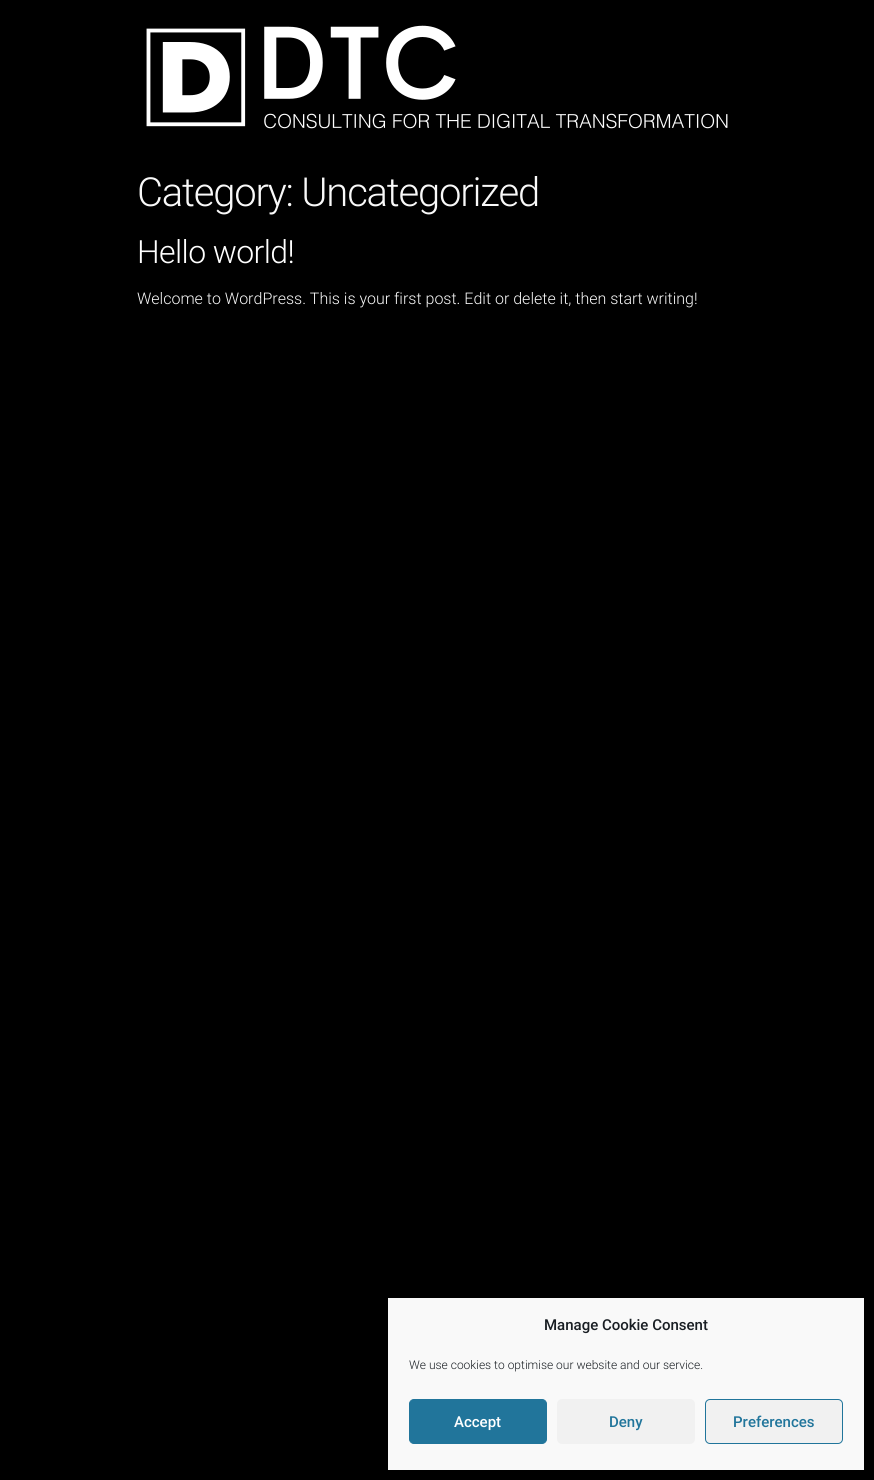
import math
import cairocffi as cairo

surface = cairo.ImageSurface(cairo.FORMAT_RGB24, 874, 1480)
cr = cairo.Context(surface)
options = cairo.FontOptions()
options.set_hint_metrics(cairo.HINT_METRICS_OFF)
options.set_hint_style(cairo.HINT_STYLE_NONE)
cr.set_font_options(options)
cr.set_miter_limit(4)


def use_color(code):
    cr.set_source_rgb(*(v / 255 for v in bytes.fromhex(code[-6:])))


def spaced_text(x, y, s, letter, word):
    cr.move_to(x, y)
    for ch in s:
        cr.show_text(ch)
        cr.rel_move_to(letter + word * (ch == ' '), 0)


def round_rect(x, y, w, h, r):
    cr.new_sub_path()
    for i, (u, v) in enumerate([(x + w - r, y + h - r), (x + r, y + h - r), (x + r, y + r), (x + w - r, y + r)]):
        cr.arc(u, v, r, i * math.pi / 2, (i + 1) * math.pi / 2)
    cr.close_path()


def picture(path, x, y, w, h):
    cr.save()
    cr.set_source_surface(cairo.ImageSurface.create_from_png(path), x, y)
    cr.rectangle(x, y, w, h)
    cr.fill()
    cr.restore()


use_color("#000000")
cr.paint()
picture("img1.png", 146, 25, 582, 104)
cr.select_font_face("Roboto Light")
cr.set_font_size(40)
use_color("#f9f9f9")
spaced_text(137, 206, "Category: Uncategorized", -1.2, 0)
cr.set_font_size(32)
use_color("#ffffff")
spaced_text(137, 263, "Hello world!", -0.6, 0)
cr.set_font_size(16)
use_color("#f9f9f9")
cr.move_to(137, 304)
cr.show_text("Welcome to WordPress. This is your first post. Edit or delete it, then start writing!")
cr.rectangle(388, 1298, 476, 172)
cr.fill()
cr.select_font_face("Roboto Medium")
cr.set_font_size(15)
use_color("#191e23")
cr.move_to(544, 1330)
cr.show_text("Manage Cookie Consent")
cr.select_font_face("Roboto Light")
cr.set_font_size(12)
cr.move_to(409, 1369)
cr.show_text("We use cookies to optimise our website and our service.")
use_color("#21759b")
round_rect(409.5, 1399.5, 137, 44, 4.5)
cr.fill_preserve()
cr.set_line_width(1)
cr.stroke()
cr.select_font_face("Roboto Medium")
cr.set_font_size(15)
use_color("#ffffff")
cr.move_to(454, 1427)
cr.show_text("Accept")
use_color("#f1f1f1")
round_rect(557, 1399, 138, 45, 5)
cr.fill()
use_color("#21759b")
cr.move_to(609, 1427)
cr.show_text("Deny")
use_color("#f1f1f1")
round_rect(705.5, 1399.5, 137, 44, 4.5)
cr.fill_preserve()
use_color("#21759b")
cr.stroke()
cr.move_to(733, 1427)
cr.show_text("Preferences")
surface.write_to_png("result.png")
